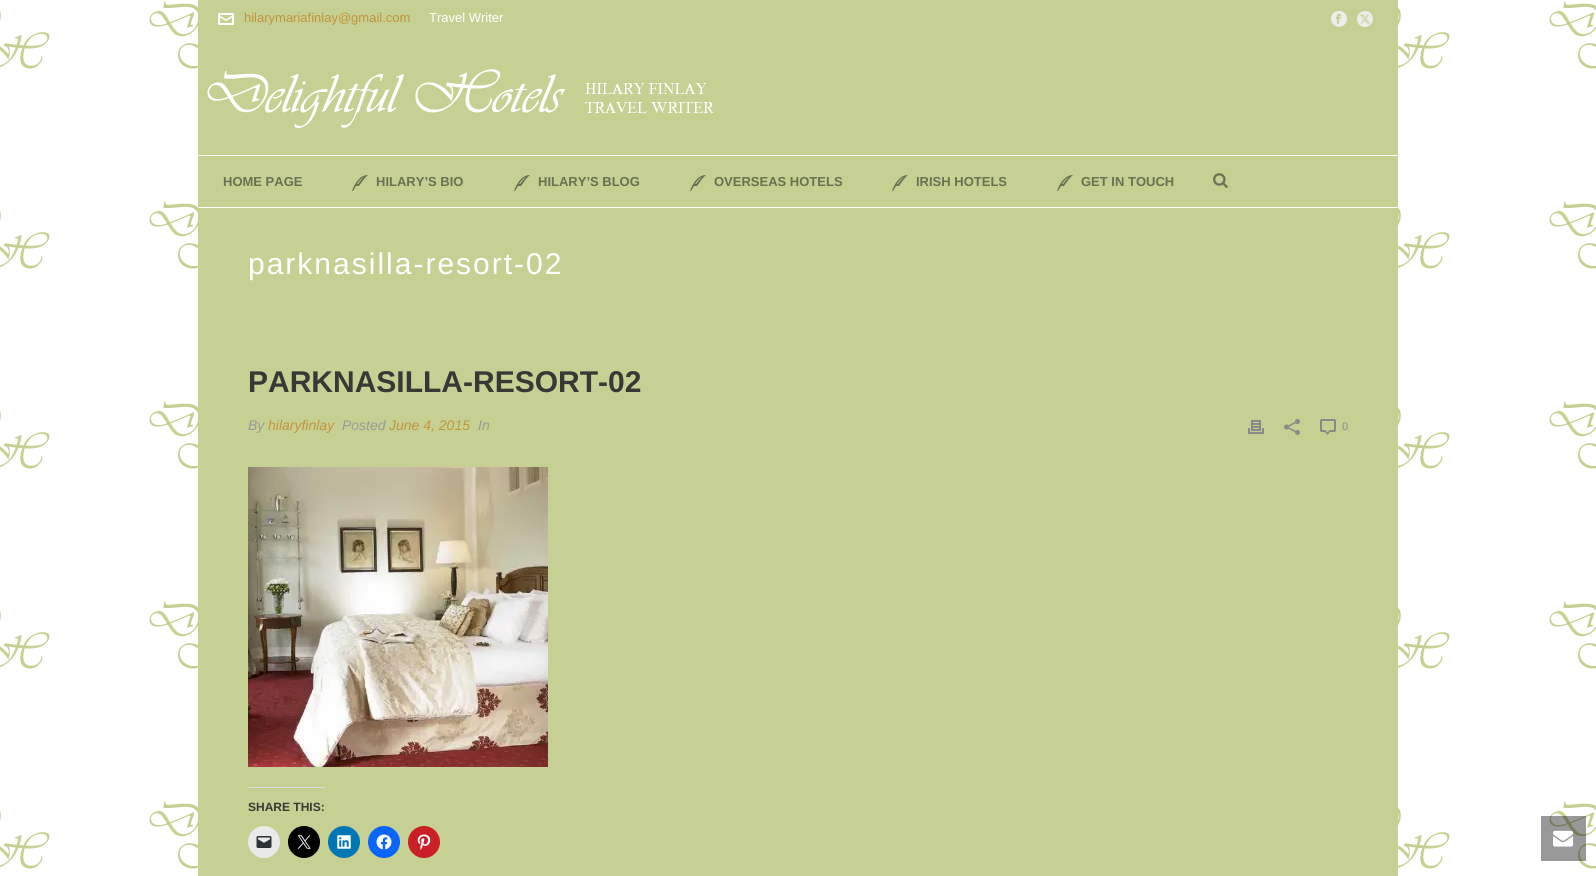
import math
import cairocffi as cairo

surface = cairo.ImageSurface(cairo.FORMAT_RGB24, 1596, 876)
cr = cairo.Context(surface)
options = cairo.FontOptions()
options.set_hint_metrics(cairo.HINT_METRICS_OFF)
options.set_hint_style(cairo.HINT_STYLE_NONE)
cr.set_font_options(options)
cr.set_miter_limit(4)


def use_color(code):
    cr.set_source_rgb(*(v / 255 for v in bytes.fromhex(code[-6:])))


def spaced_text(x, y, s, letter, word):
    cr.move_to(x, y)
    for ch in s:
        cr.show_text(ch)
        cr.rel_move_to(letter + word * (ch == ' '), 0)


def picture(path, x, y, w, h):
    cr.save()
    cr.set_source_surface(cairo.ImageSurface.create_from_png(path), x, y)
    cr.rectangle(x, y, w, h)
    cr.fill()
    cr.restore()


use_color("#ffffff")
cr.paint()
picture("img1.png", 0, 1, 1596, 868)
use_color("#c6d093")
cr.rectangle(198, 0, 1200, 207)
cr.fill()
picture("img2.png", 218, 13, 16, 12)
cr.select_font_face("Liberation Sans")
cr.set_font_size(13)
use_color("#c2943c")
cr.move_to(244, 22)
cr.show_text("hilarymariafinlay@gmail.com")
use_color("#ffffff")
cr.move_to(429, 22)
cr.show_text("Travel Writer")
picture("img3.png", 1331, 11, 16, 16)
picture("img4.png", 1357, 11, 16, 16)
cr.rectangle(198, 207, 1200, 1)
cr.fill()
picture("img5.png", 207, 69, 507, 59)
cr.rectangle(198, 155, 1200, 1)
cr.fill()
cr.select_font_face("Liberation Sans", cairo.FONT_SLANT_NORMAL, cairo.FONT_WEIGHT_BOLD)
use_color("#667250")
cr.move_to(223, 186)
cr.show_text("HOME PAGE")
picture("img6.png", 352, 175, 16, 16)
cr.move_to(376, 186)
cr.show_text("HILARY’S BIO")
picture("img6.png", 514, 175, 16, 16)
cr.move_to(538, 186)
cr.show_text("HILARY’S BLOG")
picture("img6.png", 690, 175, 16, 16)
cr.move_to(714, 186)
cr.show_text("OVERSEAS HOTELS")
picture("img6.png", 892, 175, 16, 16)
cr.move_to(916, 186)
cr.show_text("IRISH HOTELS")
picture("img6.png", 1057, 175, 16, 16)
cr.move_to(1081, 186)
cr.show_text("GET IN TOUCH")
picture("img7.png", 1213, 173, 15, 15)
use_color("#c6d093")
cr.rectangle(198, 208, 1200, 668)
cr.fill()
cr.select_font_face("Liberation Sans")
cr.set_font_size(30)
use_color("#ffffff")
spaced_text(248, 274, "parknasilla-resort-02", 2, 0)
cr.select_font_face("Liberation Sans", cairo.FONT_SLANT_NORMAL, cairo.FONT_WEIGHT_BOLD)
use_color("#393836")
cr.move_to(248, 392)
cr.show_text("PARKNASILLA-RESORT-02")
cr.select_font_face("Liberation Sans", cairo.FONT_SLANT_ITALIC)
cr.set_font_size(14)
use_color("#999999")
cr.move_to(248, 430)
cr.show_text("By")
use_color("#c2943c")
cr.move_to(268, 430)
cr.show_text("hilaryfinlay")
use_color("#999999")
cr.move_to(342, 430)
cr.show_text("Posted")
use_color("#c2943c")
cr.move_to(389, 430)
cr.show_text("June 4, 2015")
use_color("#999999")
cr.move_to(478, 430)
cr.show_text("In")
picture("img8.png", 1248, 420, 16, 14)
picture("img9.png", 1284, 419, 16, 16)
picture("img10.png", 1320, 419, 16, 16)
cr.select_font_face("Liberation Sans")
cr.set_font_size(11)
use_color("#898989")
cr.move_to(1342, 430)
cr.show_text("0")
picture("img11.png", 248, 467, 300, 300)
use_color("#dcdcde")
cr.rectangle(248, 787, 77, 1)
cr.fill()
cr.select_font_face("Liberation Sans", cairo.FONT_SLANT_NORMAL, cairo.FONT_WEIGHT_BOLD)
cr.set_font_size(12)
use_color("#393836")
cr.move_to(248, 811)
cr.show_text("SHARE THIS:")
use_color("#e9e9e9")
cr.new_path()
cr.arc(264, 842, 16, 0, 2 * math.pi)
cr.fill()
picture("img12.png", 256, 836, 16, 12)
use_color("#000000")
cr.arc(304, 842, 16, 0, 2 * math.pi)
cr.fill()
picture("img13.png", 297, 835, 14, 14)
use_color("#0077b5")
cr.arc(344, 842, 16, 0, 2 * math.pi)
cr.fill()
picture("img14.png", 337, 835, 14, 14)
use_color("#0866ff")
cr.arc(384, 842, 16, 0, 2 * math.pi)
cr.fill()
picture("img15.png", 376, 834, 16, 16)
use_color("#ca1f27")
cr.arc(424, 842, 16, 0, 2 * math.pi)
cr.fill()
picture("img16.png", 417, 834, 14, 16)
cr.set_source_rgba(0, 0, 0, 0.4)
cr.rectangle(1541, 816, 45, 45)
cr.fill()
picture("img17.png", 1553, 830, 20, 17)
surface.write_to_png("result.png")
